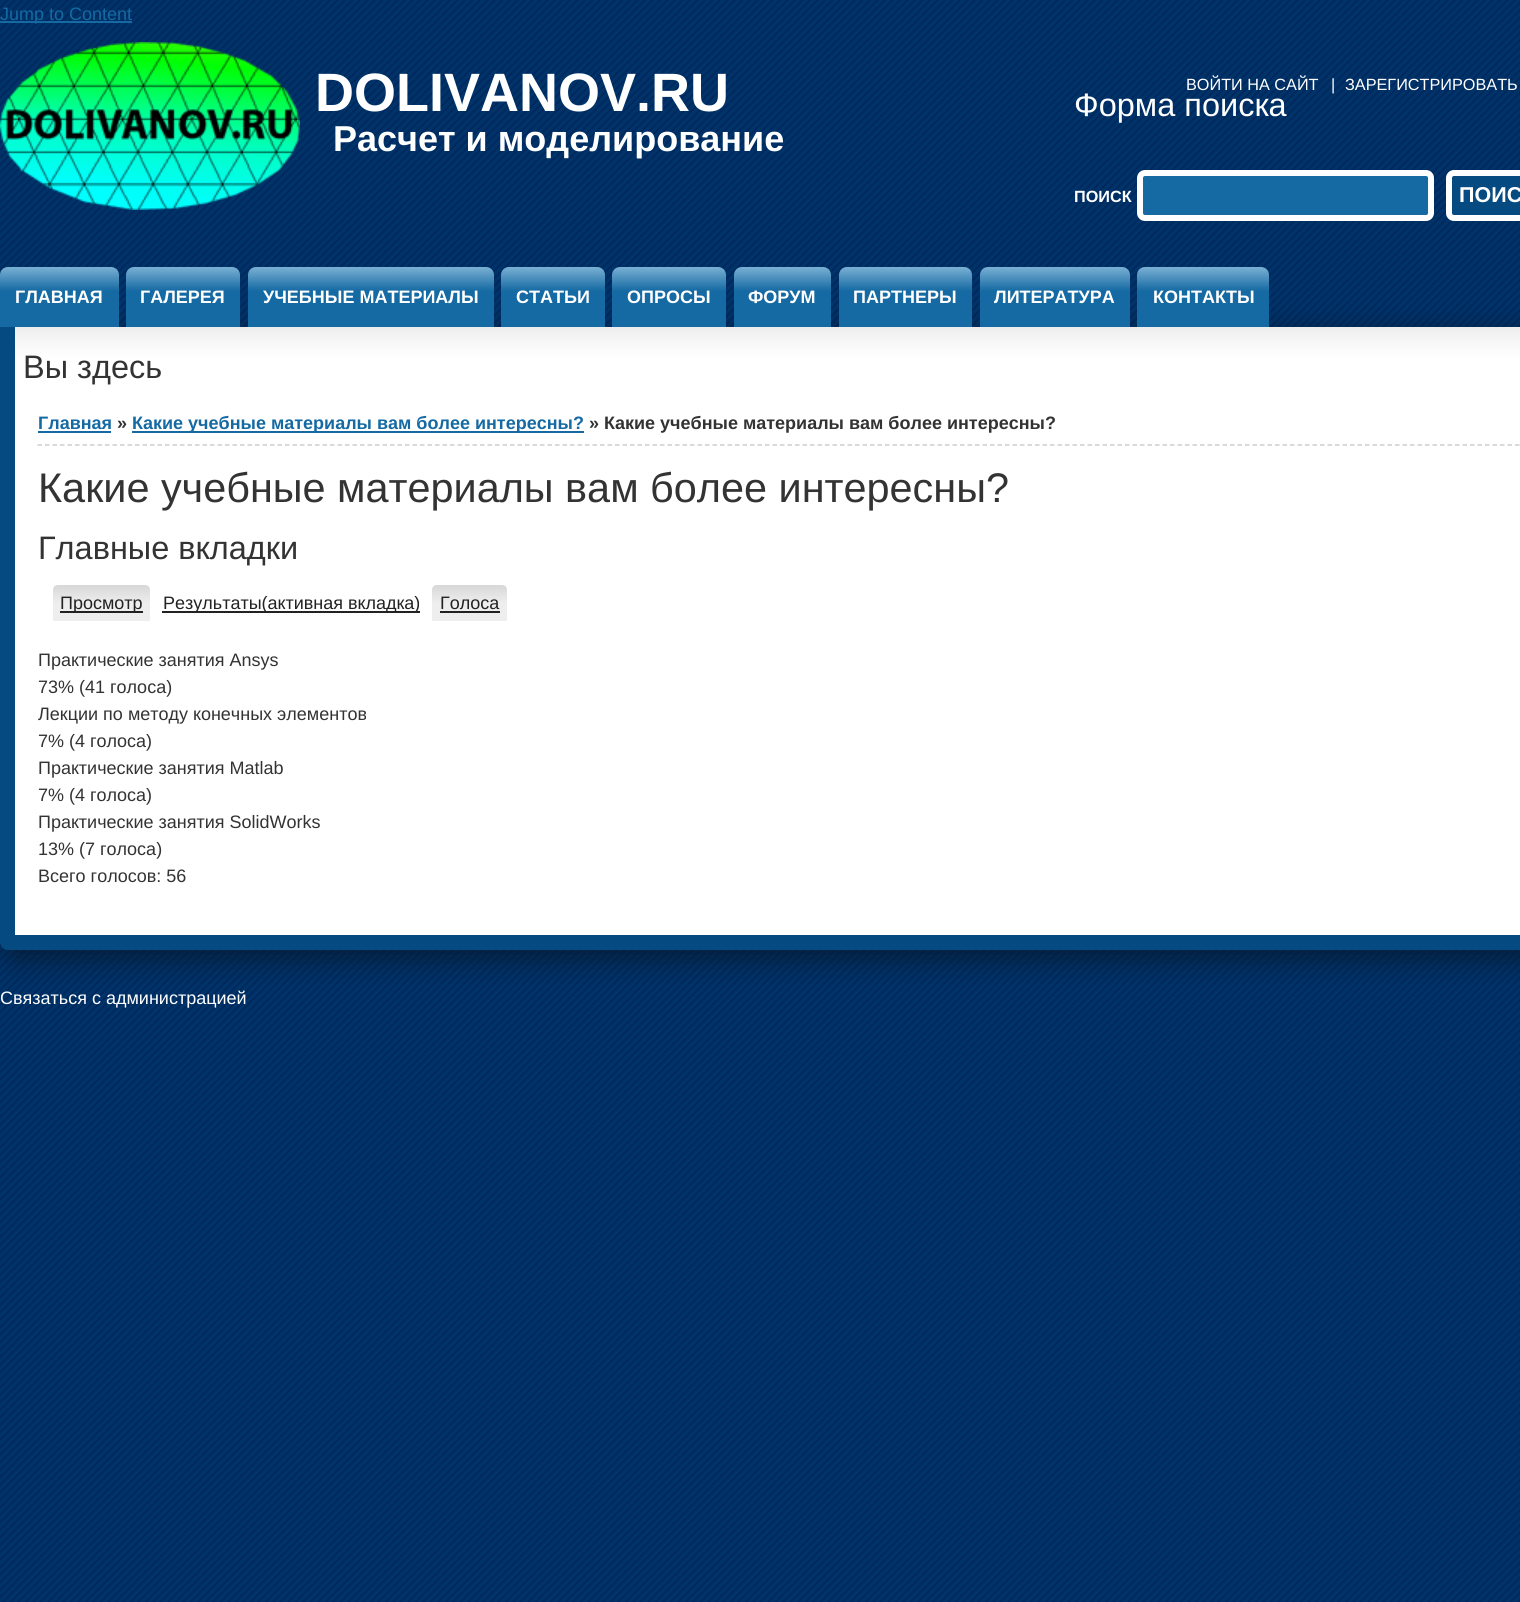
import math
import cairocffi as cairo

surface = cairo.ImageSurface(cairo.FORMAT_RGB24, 1520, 1602)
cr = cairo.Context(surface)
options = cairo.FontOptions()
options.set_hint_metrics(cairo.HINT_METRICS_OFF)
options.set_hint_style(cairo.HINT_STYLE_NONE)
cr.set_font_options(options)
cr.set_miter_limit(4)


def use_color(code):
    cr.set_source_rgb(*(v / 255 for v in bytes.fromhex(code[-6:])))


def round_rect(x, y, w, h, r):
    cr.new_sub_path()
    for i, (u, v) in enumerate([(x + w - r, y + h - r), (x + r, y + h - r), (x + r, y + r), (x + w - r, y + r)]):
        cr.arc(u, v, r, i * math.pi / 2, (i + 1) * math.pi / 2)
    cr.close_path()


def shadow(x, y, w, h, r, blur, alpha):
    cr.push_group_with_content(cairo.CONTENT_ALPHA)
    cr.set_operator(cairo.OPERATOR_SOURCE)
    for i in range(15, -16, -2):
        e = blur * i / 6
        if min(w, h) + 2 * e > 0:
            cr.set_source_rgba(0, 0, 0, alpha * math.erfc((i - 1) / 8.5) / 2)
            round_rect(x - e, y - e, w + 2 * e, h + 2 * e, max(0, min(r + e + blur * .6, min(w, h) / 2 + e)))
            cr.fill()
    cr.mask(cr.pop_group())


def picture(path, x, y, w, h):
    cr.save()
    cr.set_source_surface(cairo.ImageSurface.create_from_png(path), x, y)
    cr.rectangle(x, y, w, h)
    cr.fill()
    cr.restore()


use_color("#ffffff")
cr.paint()
picture("img1.png", 0, 0, 1520, 1602)
use_color("#156aa3")
cr.rectangle(0, 21, 132, 2)
cr.fill()
cr.select_font_face("Liberation Sans")
cr.set_font_size(18)
cr.move_to(0, 20)
cr.show_text("Jump to Content")
picture("img2.png", 0, 42, 300, 168)
cr.select_font_face("Liberation Sans", cairo.FONT_SLANT_NORMAL, cairo.FONT_WEIGHT_BOLD)
cr.set_font_size(54)
use_color("#ffffff")
cr.move_to(315, 111)
cr.show_text("DOLIVANOV.RU")
cr.set_font_size(36)
cr.move_to(333, 151)
cr.show_text("Расчет и моделирование")
cr.select_font_face("Liberation Sans")
cr.set_font_size(16.25)
cr.move_to(1186, 90)
cr.show_text("ВОЙТИ НА САЙТ")
cr.move_to(1331, 90)
cr.show_text("|")
cr.move_to(1345, 90)
cr.show_text("ЗАРЕГИСТРИРОВАТЬ")
cr.set_font_size(32.5)
cr.move_to(1074, 116)
cr.show_text("Форма поиска")
cr.select_font_face("Liberation Sans", cairo.FONT_SLANT_NORMAL, cairo.FONT_WEIGHT_BOLD)
cr.set_font_size(16.25)
cr.move_to(1074, 202)
cr.show_text("ПОИСК")
use_color("#156aa3")
round_rect(1140, 173, 291, 45, 5)
cr.fill_preserve()
use_color("#ffffff")
cr.set_line_width(6)
cr.stroke()
use_color("#054b81")
round_rect(1449, 173, 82, 45, 5)
cr.fill_preserve()
use_color("#ffffff")
cr.stroke()
cr.set_font_size(21.5)
cr.move_to(1459, 202)
cr.show_text("ПОИС")
use_color("#051b32")
shadow(8, 335, 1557, 622, 8, 15, 1)
gradient = cairo.LinearGradient(0, 267, 0, 327)
gradient.add_color_stop_rgba(0, 0.478, 0.69, 0.831, 1)
gradient.add_color_stop_rgba(0.4, 0.082, 0.416, 0.639, 1)
cr.set_source(gradient)
cr.new_path()
cr.move_to(8, 267)
cr.line_to(111, 267)
cr.curve_to(115.5, 267, 119, 270.5, 119, 275)
cr.line_to(119, 327)
cr.line_to(0, 327)
cr.line_to(0, 275)
cr.curve_to(0, 270.5, 3.5, 267, 8, 267)
cr.close_path()
cr.fill()
cr.set_font_size(18)
use_color("#ffffff")
cr.move_to(15, 303)
cr.show_text("ГЛАВНАЯ")
gradient = cairo.LinearGradient(126, 267, 126, 327)
gradient.add_color_stop_rgba(0, 0.478, 0.69, 0.831, 1)
gradient.add_color_stop_rgba(0.4, 0.082, 0.416, 0.639, 1)
cr.set_source(gradient)
cr.new_path()
cr.move_to(134, 267)
cr.line_to(232, 267)
cr.curve_to(236.5, 267, 240, 270.5, 240, 275)
cr.line_to(240, 327)
cr.line_to(126, 327)
cr.line_to(126, 275)
cr.curve_to(126, 270.5, 129.5, 267, 134, 267)
cr.close_path()
cr.fill()
use_color("#ffffff")
cr.move_to(140, 303)
cr.show_text("ГАЛЕРЕЯ")
gradient = cairo.LinearGradient(248, 267, 248, 327)
gradient.add_color_stop_rgba(0, 0.478, 0.69, 0.831, 1)
gradient.add_color_stop_rgba(0.4, 0.082, 0.416, 0.639, 1)
cr.set_source(gradient)
cr.new_path()
cr.move_to(256, 267)
cr.line_to(486, 267)
cr.curve_to(490.5, 267, 494, 270.5, 494, 275)
cr.line_to(494, 327)
cr.line_to(248, 327)
cr.line_to(248, 275)
cr.curve_to(248, 270.5, 251.5, 267, 256, 267)
cr.close_path()
cr.fill()
use_color("#ffffff")
cr.move_to(263, 303)
cr.show_text("УЧЕБНЫЕ МАТЕРИАЛЫ")
gradient = cairo.LinearGradient(501, 267, 501, 327)
gradient.add_color_stop_rgba(0, 0.478, 0.69, 0.831, 1)
gradient.add_color_stop_rgba(0.4, 0.082, 0.416, 0.639, 1)
cr.set_source(gradient)
cr.new_path()
cr.move_to(509, 267)
cr.line_to(597, 267)
cr.curve_to(601.5, 267, 605, 270.5, 605, 275)
cr.line_to(605, 327)
cr.line_to(501, 327)
cr.line_to(501, 275)
cr.curve_to(501, 270.5, 504.5, 267, 509, 267)
cr.close_path()
cr.fill()
use_color("#ffffff")
cr.move_to(516, 303)
cr.show_text("CТАТЬИ")
gradient = cairo.LinearGradient(612, 267, 612, 327)
gradient.add_color_stop_rgba(0, 0.478, 0.69, 0.831, 1)
gradient.add_color_stop_rgba(0.4, 0.082, 0.416, 0.639, 1)
cr.set_source(gradient)
cr.new_path()
cr.move_to(620, 267)
cr.line_to(718, 267)
cr.curve_to(722.5, 267, 726, 270.5, 726, 275)
cr.line_to(726, 327)
cr.line_to(612, 327)
cr.line_to(612, 275)
cr.curve_to(612, 270.5, 615.5, 267, 620, 267)
cr.close_path()
cr.fill()
use_color("#ffffff")
cr.move_to(627, 303)
cr.show_text("ОПРОСЫ")
gradient = cairo.LinearGradient(734, 267, 734, 327)
gradient.add_color_stop_rgba(0, 0.478, 0.69, 0.831, 1)
gradient.add_color_stop_rgba(0.4, 0.082, 0.416, 0.639, 1)
cr.set_source(gradient)
cr.new_path()
cr.move_to(742, 267)
cr.line_to(823, 267)
cr.curve_to(827.5, 267, 831, 270.5, 831, 275)
cr.line_to(831, 327)
cr.line_to(734, 327)
cr.line_to(734, 275)
cr.curve_to(734, 270.5, 737.5, 267, 742, 267)
cr.close_path()
cr.fill()
use_color("#ffffff")
cr.move_to(748, 303)
cr.show_text("ФОРУМ")
gradient = cairo.LinearGradient(839, 267, 839, 327)
gradient.add_color_stop_rgba(0, 0.478, 0.69, 0.831, 1)
gradient.add_color_stop_rgba(0.4, 0.082, 0.416, 0.639, 1)
cr.set_source(gradient)
cr.new_path()
cr.move_to(847, 267)
cr.line_to(964, 267)
cr.curve_to(968.5, 267, 972, 270.5, 972, 275)
cr.line_to(972, 327)
cr.line_to(839, 327)
cr.line_to(839, 275)
cr.curve_to(839, 270.5, 842.5, 267, 847, 267)
cr.close_path()
cr.fill()
use_color("#ffffff")
cr.move_to(853, 303)
cr.show_text("ПАРТНЕРЫ")
gradient = cairo.LinearGradient(980, 267, 980, 327)
gradient.add_color_stop_rgba(0, 0.478, 0.69, 0.831, 1)
gradient.add_color_stop_rgba(0.4, 0.082, 0.416, 0.639, 1)
cr.set_source(gradient)
cr.new_path()
cr.move_to(988, 267)
cr.line_to(1122, 267)
cr.curve_to(1126.5, 267, 1130, 270.5, 1130, 275)
cr.line_to(1130, 327)
cr.line_to(980, 327)
cr.line_to(980, 275)
cr.curve_to(980, 270.5, 983.5, 267, 988, 267)
cr.close_path()
cr.fill()
use_color("#ffffff")
cr.move_to(994, 303)
cr.show_text("ЛИТЕРАТУРА")
gradient = cairo.LinearGradient(1137, 267, 1137, 327)
gradient.add_color_stop_rgba(0, 0.478, 0.69, 0.831, 1)
gradient.add_color_stop_rgba(0.4, 0.082, 0.416, 0.639, 1)
cr.set_source(gradient)
cr.new_path()
cr.move_to(1145, 267)
cr.line_to(1261, 267)
cr.curve_to(1265.5, 267, 1269, 270.5, 1269, 275)
cr.line_to(1269, 327)
cr.line_to(1137, 327)
cr.line_to(1137, 275)
cr.curve_to(1137, 270.5, 1140.5, 267, 1145, 267)
cr.close_path()
cr.fill()
use_color("#ffffff")
cr.move_to(1153, 303)
cr.show_text("КОНТАКТЫ")
use_color("#054b81")
cr.set_fill_rule(cairo.FILL_RULE_EVEN_ODD)
cr.new_path()
cr.move_to(0, 327)
cr.line_to(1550, 327)
cr.curve_to(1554, 327, 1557, 330, 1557, 334)
cr.line_to(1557, 942)
cr.curve_to(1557, 946, 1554, 950, 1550, 950)
cr.line_to(8, 950)
cr.curve_to(3, 950, 0, 946, 0, 942)
cr.close_path()
cr.move_to(15, 327)
cr.line_to(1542, 327)
cr.line_to(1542, 934)
cr.line_to(15, 934)
cr.close_path()
cr.fill()
gradient = cairo.LinearGradient(15, 327, 15, 935)
gradient.add_color_stop_rgba(0, 0.933, 0.933, 0.933, 1)
gradient.add_color_stop_rgba(0.05, 1, 1, 1, 1)
cr.set_source(gradient)
cr.rectangle(15, 327, 1505, 608)
cr.fill()
cr.select_font_face("Liberation Sans")
cr.set_font_size(32.5)
use_color("#333333")
cr.move_to(23, 378)
cr.show_text("Вы здесь")
cr.new_path()
cr.move_to(37.5, 445)
cr.line_to(1519.5, 445)
use_color("#cccccc")
cr.set_line_width(1.5)
cr.set_dash([4.5, 3])
cr.stroke()
cr.select_font_face("Liberation Sans", cairo.FONT_SLANT_NORMAL, cairo.FONT_WEIGHT_BOLD)
cr.set_font_size(18)
use_color("#156aa3")
cr.move_to(38, 429)
cr.show_text("Главная")
cr.rectangle(38, 431, 73, 2)
cr.fill()
use_color("#333333")
cr.move_to(117, 429)
cr.show_text("»")
use_color("#156aa3")
cr.rectangle(132, 431, 452, 2)
cr.fill()
cr.move_to(132, 429)
cr.show_text("Какие учебные материалы вам более интересны?")
use_color("#333333")
cr.move_to(589, 429)
cr.show_text("» Какие учебные материалы вам более интересны?")
cr.select_font_face("Liberation Sans")
cr.set_font_size(41.4)
cr.move_to(38, 502)
cr.show_text("Какие учебные материалы вам более интересны?")
cr.set_font_size(32.5)
cr.move_to(38, 559)
cr.show_text("Главные вкладки")
gradient = cairo.LinearGradient(53, 585, 53, 621)
gradient.add_color_stop_rgba(0, 0.843, 0.843, 0.843, 1)
gradient.add_color_stop_rgba(0.5, 0.933, 0.933, 0.933, 1)
cr.set_source(gradient)
cr.new_path()
cr.move_to(58, 585)
cr.line_to(145, 585)
cr.curve_to(148, 585, 150, 587, 150, 590)
cr.line_to(150, 621)
cr.line_to(53, 621)
cr.line_to(53, 590)
cr.curve_to(53, 587, 55, 585, 58, 585)
cr.close_path()
cr.fill()
use_color("#222222")
cr.rectangle(60, 611, 83, 2)
cr.fill()
cr.set_font_size(18)
cr.move_to(60, 609)
cr.show_text("Просмотр")
cr.rectangle(162, 611, 258, 2)
cr.fill()
cr.move_to(163, 609)
cr.show_text("Результаты(активная вкладка)")
gradient = cairo.LinearGradient(432, 585, 432, 621)
gradient.add_color_stop_rgba(0, 0.843, 0.843, 0.843, 1)
gradient.add_color_stop_rgba(0.5, 0.933, 0.933, 0.933, 1)
cr.set_source(gradient)
cr.new_path()
cr.move_to(437, 585)
cr.line_to(502, 585)
cr.curve_to(505, 585, 507, 587, 507, 590)
cr.line_to(507, 621)
cr.line_to(432, 621)
cr.line_to(432, 590)
cr.curve_to(432, 587, 434, 585, 437, 585)
cr.close_path()
cr.fill()
use_color("#222222")
cr.move_to(440, 609)
cr.show_text("Голоса")
cr.rectangle(440, 611, 60, 2)
cr.fill()
use_color("#333333")
cr.move_to(38, 666)
cr.show_text("Практические занятия Ansys")
cr.move_to(38, 693)
cr.show_text("73% (41 голоса)")
cr.move_to(38, 720)
cr.show_text("Лекции по методу конечных элементов")
cr.move_to(38, 747)
cr.show_text("7% (4 голоса)")
cr.move_to(38, 774)
cr.show_text("Практические занятия Matlab")
cr.move_to(38, 801)
cr.show_text("7% (4 голоса)")
cr.move_to(38, 828)
cr.show_text("Практические занятия SolidWorks")
cr.move_to(38, 855)
cr.show_text("13% (7 голоса)")
cr.move_to(38, 882)
cr.show_text("Всего голосов: 56")
use_color("#ffffff")
cr.move_to(0, 1004)
cr.show_text("Связаться с администрацией")
surface.write_to_png("result.png")
